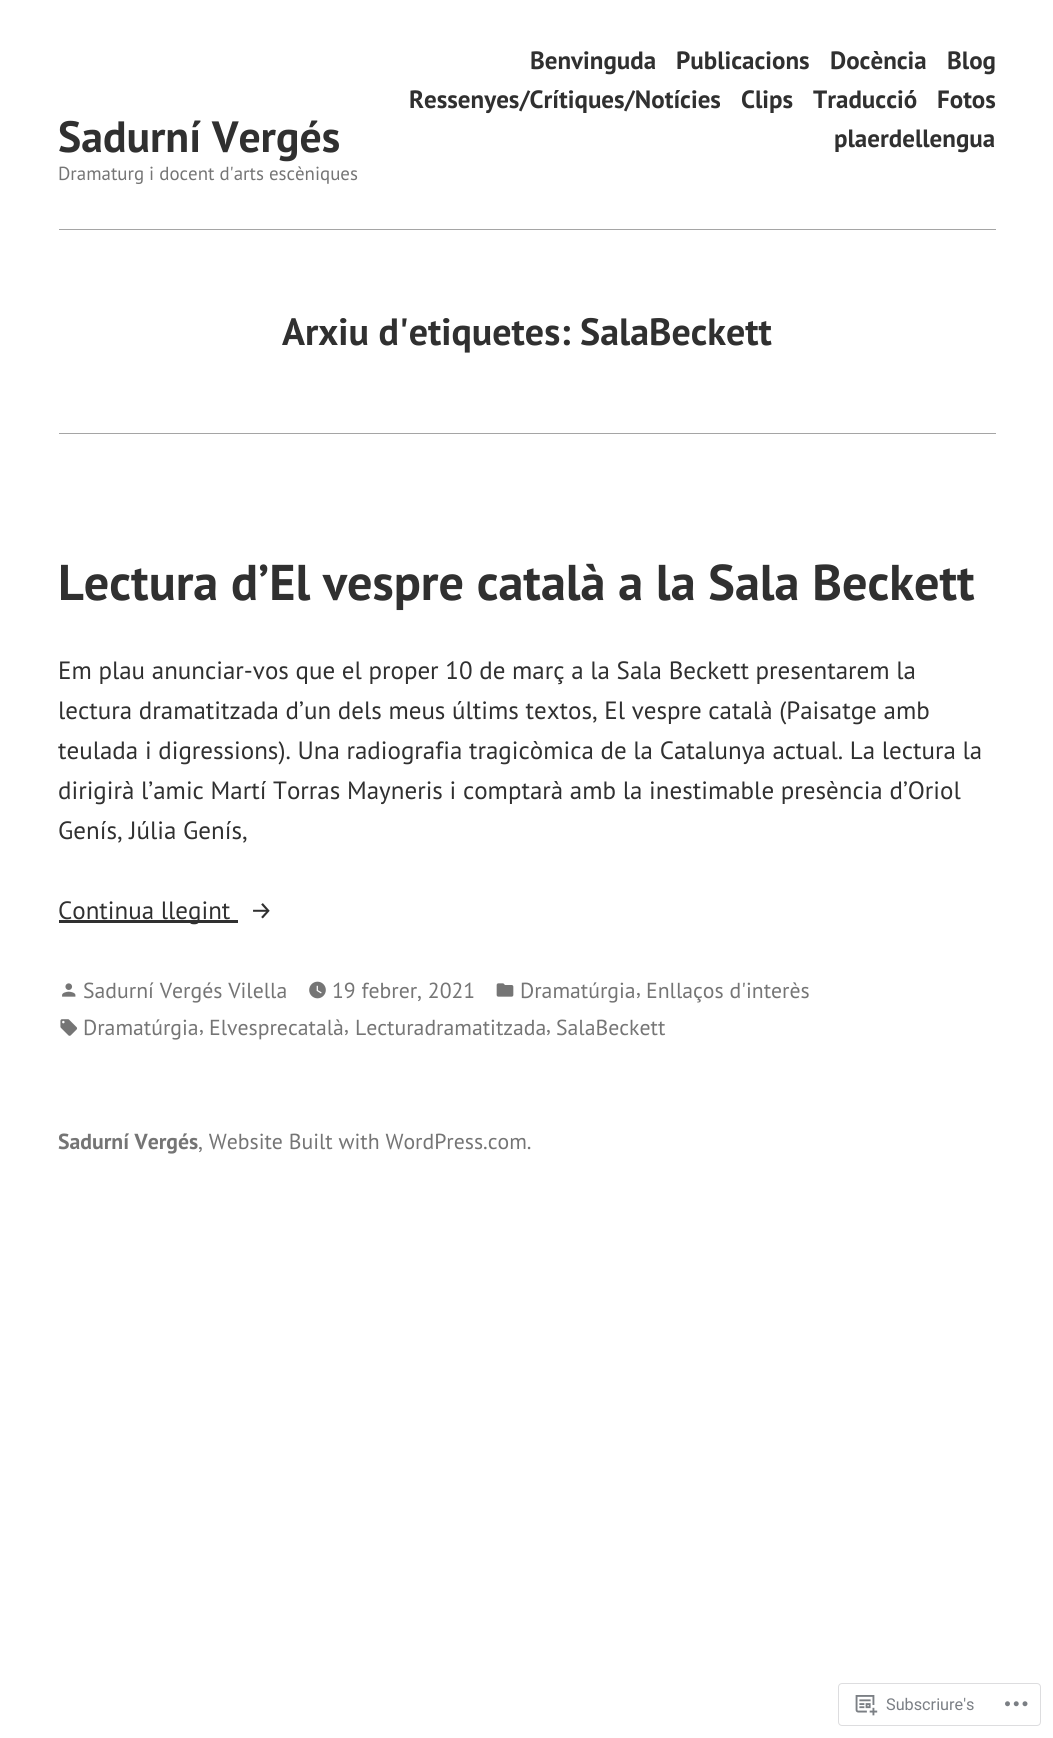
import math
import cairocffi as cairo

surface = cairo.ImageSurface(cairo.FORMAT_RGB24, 1053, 1738)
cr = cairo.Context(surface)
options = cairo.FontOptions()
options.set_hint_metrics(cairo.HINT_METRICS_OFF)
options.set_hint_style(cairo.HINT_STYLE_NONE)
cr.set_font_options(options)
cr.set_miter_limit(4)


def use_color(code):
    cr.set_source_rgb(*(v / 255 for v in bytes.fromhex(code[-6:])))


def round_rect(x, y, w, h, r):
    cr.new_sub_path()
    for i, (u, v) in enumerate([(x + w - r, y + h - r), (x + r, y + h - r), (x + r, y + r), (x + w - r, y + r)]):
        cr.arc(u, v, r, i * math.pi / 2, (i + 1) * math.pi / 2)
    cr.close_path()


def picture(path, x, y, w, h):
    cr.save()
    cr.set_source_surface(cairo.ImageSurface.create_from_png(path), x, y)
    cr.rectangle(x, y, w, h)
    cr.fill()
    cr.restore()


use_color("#ffffff")
cr.paint()
cr.select_font_face("PT Sans", cairo.FONT_SLANT_NORMAL, cairo.FONT_WEIGHT_BOLD)
cr.set_font_size(43.75)
use_color("#303030")
cr.move_to(58, 152)
cr.show_text("Sadurní Vergés")
cr.set_font_size(25)
cr.move_to(530, 69)
cr.show_text("Benvinguda")
cr.move_to(676, 69)
cr.show_text("Publicacions")
cr.move_to(830, 69)
cr.show_text("Docència")
cr.move_to(947, 69)
cr.show_text("Blog")
cr.move_to(409, 108)
cr.show_text("Ressenyes/Crítiques/Notícies")
cr.move_to(741, 108)
cr.show_text("Clips")
cr.move_to(813, 108)
cr.show_text("Traducció")
cr.move_to(937, 108)
cr.show_text("Fotos")
cr.move_to(834, 147)
cr.show_text("plaerdellengua")
cr.select_font_face("PT Sans")
cr.set_font_size(18.9)
use_color("#757575")
cr.move_to(58, 180)
cr.show_text("Dramaturg i docent d'arts escèniques")
use_color("#a5a5a5")
cr.rectangle(59, 229, 937, 1)
cr.fill()
cr.select_font_face("PT Sans", cairo.FONT_SLANT_NORMAL, cairo.FONT_WEIGHT_BOLD)
cr.set_font_size(38)
use_color("#303030")
cr.move_to(282, 345)
cr.show_text("Arxiu d'etiquetes: SalaBeckett")
use_color("#a5a5a5")
cr.rectangle(59, 433, 937, 1)
cr.fill()
cr.set_font_size(50.25)
use_color("#303030")
cr.move_to(58, 600)
cr.show_text("Lectura d’El vespre català a la Sala Beckett")
cr.select_font_face("PT Sans")
cr.set_font_size(25)
cr.move_to(58, 679)
cr.show_text("Em plau anunciar-vos que el proper 10 de març a la Sala Beckett presentarem la")
cr.move_to(58, 719)
cr.show_text("lectura dramatitzada d’un dels meus últims textos, El vespre català (Paisatge amb")
cr.move_to(58, 759)
cr.show_text("teulada i digressions). Una radiografia tragicòmica de la Catalunya actual. La lectura la")
cr.move_to(58, 799)
cr.show_text("dirigirà l’amic Martí Torras Mayneris i comptarà amb la inestimable presència d’Oriol")
cr.move_to(58, 839)
cr.show_text("Genís, Júlia Genís,")
cr.rectangle(59, 920, 179, 3)
cr.fill()
cr.move_to(58, 919)
cr.show_text("Continua llegint")
cr.select_font_face("Fira Sans")
cr.move_to(250, 919)
cr.show_text("→")
picture("img1.png", 62, 983, 14, 14)
cr.select_font_face("PT Sans")
cr.set_font_size(21.75)
use_color("#757575")
cr.move_to(83, 998)
cr.show_text("Sadurní Vergés Vilella")
picture("img2.png", 309, 981, 17, 18)
cr.move_to(332, 998)
cr.show_text("19 febrer, 2021")
picture("img3.png", 496, 983, 18, 14)
cr.move_to(520, 998)
cr.show_text("Dramatúrgia")
cr.move_to(636, 995)
cr.show_text(",")
cr.move_to(646, 998)
cr.show_text("Enllaços d'interès")
picture("img4.png", 60, 1019, 18, 17)
cr.move_to(83, 1035)
cr.show_text("Dramatúrgia")
cr.move_to(199, 1032)
cr.show_text(",")
cr.move_to(209, 1035)
cr.show_text("Elvesprecatalà")
cr.move_to(344, 1032)
cr.show_text(",")
cr.move_to(355, 1035)
cr.show_text("Lecturadramatitzada")
cr.move_to(546, 1032)
cr.show_text(",")
cr.move_to(556, 1035)
cr.show_text("SalaBeckett")
cr.select_font_face("PT Sans", cairo.FONT_SLANT_NORMAL, cairo.FONT_WEIGHT_BOLD)
cr.move_to(58, 1149)
cr.show_text("Sadurní Vergés")
cr.select_font_face("PT Sans")
cr.move_to(198, 1149)
cr.show_text(", Website Built with WordPress.com.")
round_rect(838.5, 1683.5, 202, 42, 3.5)
use_color("#dddddf")
cr.set_line_width(1)
cr.stroke()
picture("img5.png", 855, 1695, 23, 21)
cr.select_font_face("Roboto")
cr.set_font_size(16.25)
use_color("#7b7f85")
cr.move_to(886, 1710)
cr.show_text("Subscriure's")
picture("img6.png", 1005, 1701, 23, 6)
surface.write_to_png("result.png")
